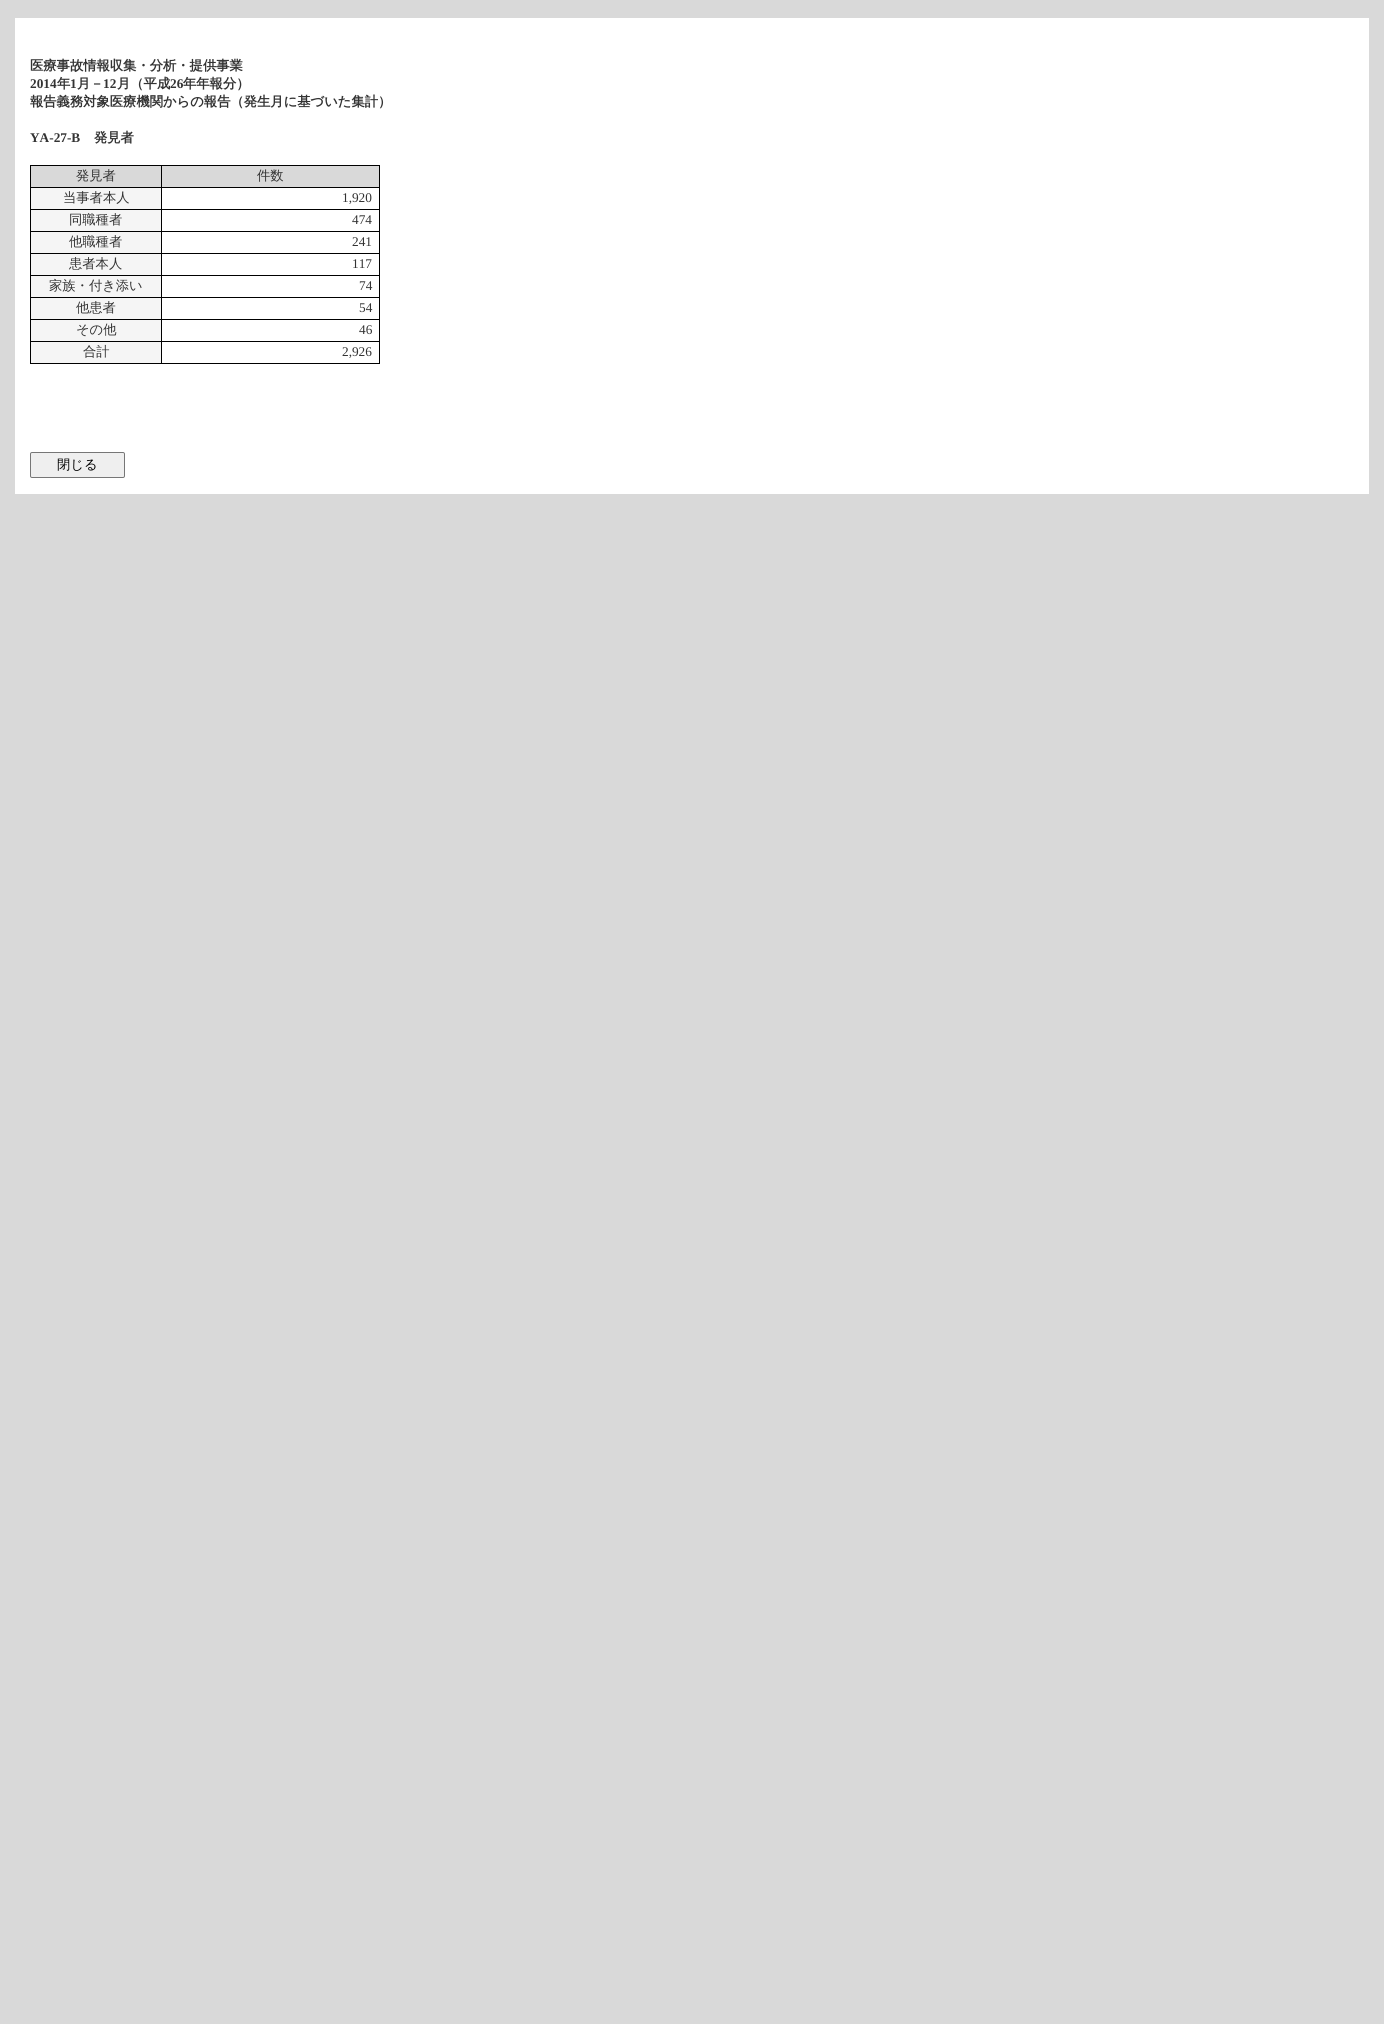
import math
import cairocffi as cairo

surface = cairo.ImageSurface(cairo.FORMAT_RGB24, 1384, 2024)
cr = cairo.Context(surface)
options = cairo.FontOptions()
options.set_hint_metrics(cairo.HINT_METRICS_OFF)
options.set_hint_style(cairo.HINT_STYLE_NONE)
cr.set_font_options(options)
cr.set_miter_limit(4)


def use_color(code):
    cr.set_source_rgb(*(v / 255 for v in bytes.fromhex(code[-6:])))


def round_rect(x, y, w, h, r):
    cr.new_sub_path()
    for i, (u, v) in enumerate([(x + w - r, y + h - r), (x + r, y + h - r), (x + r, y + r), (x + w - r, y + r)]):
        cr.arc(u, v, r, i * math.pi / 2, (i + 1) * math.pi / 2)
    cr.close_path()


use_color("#d9d9d9")
cr.paint()
use_color("#ffffff")
cr.rectangle(15, 18, 1354, 476)
cr.fill()
cr.select_font_face("WenQuanYi Zen Hei", cairo.FONT_SLANT_NORMAL, cairo.FONT_WEIGHT_BOLD)
cr.set_font_size(13.3)
use_color("#333333")
cr.move_to(30, 70)
cr.show_text("医療事故情報収集・分析・提供事業")
cr.select_font_face("Liberation Serif", cairo.FONT_SLANT_NORMAL, cairo.FONT_WEIGHT_BOLD)
cr.move_to(30, 88)
cr.show_text("2014")
cr.select_font_face("WenQuanYi Zen Hei", cairo.FONT_SLANT_NORMAL, cairo.FONT_WEIGHT_BOLD)
cr.move_to(57, 88)
cr.show_text("年")
cr.select_font_face("Liberation Serif", cairo.FONT_SLANT_NORMAL, cairo.FONT_WEIGHT_BOLD)
cr.move_to(70, 88)
cr.show_text("1")
cr.select_font_face("WenQuanYi Zen Hei", cairo.FONT_SLANT_NORMAL, cairo.FONT_WEIGHT_BOLD)
cr.move_to(77, 88)
cr.show_text("月－")
cr.select_font_face("Liberation Serif", cairo.FONT_SLANT_NORMAL, cairo.FONT_WEIGHT_BOLD)
cr.move_to(103, 88)
cr.show_text("12")
cr.select_font_face("WenQuanYi Zen Hei", cairo.FONT_SLANT_NORMAL, cairo.FONT_WEIGHT_BOLD)
cr.move_to(117, 88)
cr.show_text("月（平成")
cr.select_font_face("Liberation Serif", cairo.FONT_SLANT_NORMAL, cairo.FONT_WEIGHT_BOLD)
cr.move_to(170, 88)
cr.show_text("26")
cr.select_font_face("WenQuanYi Zen Hei", cairo.FONT_SLANT_NORMAL, cairo.FONT_WEIGHT_BOLD)
cr.move_to(183, 88)
cr.show_text("年年報分）")
cr.move_to(30, 106)
cr.show_text("報告義務対象医療機関からの報告（発生月に基づいた集計）")
cr.select_font_face("Liberation Serif", cairo.FONT_SLANT_NORMAL, cairo.FONT_WEIGHT_BOLD)
cr.move_to(30, 142)
cr.show_text("YA-27-B")
cr.select_font_face("WenQuanYi Zen Hei", cairo.FONT_SLANT_NORMAL, cairo.FONT_WEIGHT_BOLD)
cr.move_to(94, 142)
cr.show_text("発見者")
use_color("#d9d9d9")
cr.rectangle(31, 166, 130, 21)
cr.fill()
use_color("#000000")
cr.rectangle(161, 165, 219, 1)
cr.fill()
cr.rectangle(161, 187, 219, 1)
cr.fill()
cr.rectangle(161, 209, 219, 1)
cr.fill()
cr.rectangle(161, 231, 219, 1)
cr.fill()
cr.rectangle(161, 253, 219, 1)
cr.fill()
cr.rectangle(161, 275, 219, 1)
cr.fill()
cr.rectangle(161, 297, 219, 1)
cr.fill()
cr.rectangle(161, 319, 219, 1)
cr.fill()
cr.rectangle(161, 341, 219, 1)
cr.fill()
cr.rectangle(379, 341, 1, 23)
cr.fill()
cr.rectangle(161, 363, 219, 1)
cr.fill()
cr.rectangle(161, 341, 1, 23)
cr.fill()
cr.rectangle(30, 341, 132, 1)
cr.fill()
cr.rectangle(161, 319, 1, 23)
cr.fill()
cr.rectangle(30, 319, 132, 1)
cr.fill()
cr.rectangle(161, 297, 1, 23)
cr.fill()
cr.rectangle(30, 297, 132, 1)
cr.fill()
cr.rectangle(161, 275, 1, 23)
cr.fill()
cr.rectangle(30, 275, 132, 1)
cr.fill()
cr.rectangle(161, 253, 1, 23)
cr.fill()
cr.rectangle(30, 253, 132, 1)
cr.fill()
cr.rectangle(161, 231, 1, 23)
cr.fill()
cr.rectangle(30, 231, 132, 1)
cr.fill()
cr.rectangle(161, 209, 1, 23)
cr.fill()
cr.rectangle(30, 209, 132, 1)
cr.fill()
cr.rectangle(161, 187, 1, 23)
cr.fill()
cr.rectangle(30, 187, 132, 1)
cr.fill()
cr.rectangle(161, 165, 1, 23)
cr.fill()
cr.rectangle(30, 165, 132, 1)
cr.fill()
cr.rectangle(30, 363, 132, 1)
cr.fill()
cr.rectangle(30, 341, 1, 23)
cr.fill()
cr.rectangle(30, 319, 1, 23)
cr.fill()
cr.rectangle(30, 297, 1, 23)
cr.fill()
cr.rectangle(30, 275, 1, 23)
cr.fill()
cr.rectangle(30, 253, 1, 23)
cr.fill()
cr.rectangle(30, 231, 1, 23)
cr.fill()
cr.rectangle(30, 209, 1, 23)
cr.fill()
cr.rectangle(30, 187, 1, 23)
cr.fill()
cr.rectangle(30, 165, 1, 23)
cr.fill()
cr.select_font_face("WenQuanYi Zen Hei Medium")
use_color("#333333")
cr.move_to(76, 180)
cr.show_text("発見者")
use_color("#d9d9d9")
cr.rectangle(162, 166, 217, 21)
cr.fill()
use_color("#000000")
cr.rectangle(379, 319, 1, 23)
cr.fill()
cr.rectangle(379, 297, 1, 23)
cr.fill()
cr.rectangle(379, 275, 1, 23)
cr.fill()
cr.rectangle(379, 253, 1, 23)
cr.fill()
cr.rectangle(379, 231, 1, 23)
cr.fill()
cr.rectangle(379, 209, 1, 23)
cr.fill()
cr.rectangle(379, 187, 1, 23)
cr.fill()
cr.rectangle(379, 165, 1, 23)
cr.fill()
use_color("#333333")
cr.move_to(257, 180)
cr.show_text("件数")
use_color("#f5f5f5")
cr.rectangle(31, 188, 130, 21)
cr.fill()
use_color("#333333")
cr.move_to(63, 202)
cr.show_text("当事者本人")
cr.select_font_face("Liberation Serif")
cr.move_to(342, 202)
cr.show_text("1,920")
use_color("#f5f5f5")
cr.rectangle(31, 210, 130, 21)
cr.fill()
cr.select_font_face("WenQuanYi Zen Hei Medium")
use_color("#333333")
cr.move_to(69, 224)
cr.show_text("同職種者")
cr.select_font_face("Liberation Serif")
cr.move_to(352, 224)
cr.show_text("474")
use_color("#f5f5f5")
cr.rectangle(31, 232, 130, 21)
cr.fill()
cr.select_font_face("WenQuanYi Zen Hei Medium")
use_color("#333333")
cr.move_to(69, 246)
cr.show_text("他職種者")
cr.select_font_face("Liberation Serif")
cr.move_to(352, 246)
cr.show_text("241")
use_color("#f5f5f5")
cr.rectangle(31, 254, 130, 21)
cr.fill()
cr.select_font_face("WenQuanYi Zen Hei Medium")
use_color("#333333")
cr.move_to(69, 268)
cr.show_text("患者本人")
cr.select_font_face("Liberation Serif")
cr.move_to(352, 268)
cr.show_text("117")
use_color("#f5f5f5")
cr.rectangle(31, 276, 130, 21)
cr.fill()
cr.select_font_face("WenQuanYi Zen Hei Medium")
use_color("#333333")
cr.move_to(49, 290)
cr.show_text("家族・付き添い")
cr.select_font_face("Liberation Serif")
cr.move_to(359, 290)
cr.show_text("74")
use_color("#f5f5f5")
cr.rectangle(31, 298, 130, 21)
cr.fill()
cr.select_font_face("WenQuanYi Zen Hei Medium")
use_color("#333333")
cr.move_to(76, 312)
cr.show_text("他患者")
cr.select_font_face("Liberation Serif")
cr.move_to(359, 312)
cr.show_text("54")
use_color("#f5f5f5")
cr.rectangle(31, 320, 130, 21)
cr.fill()
cr.select_font_face("WenQuanYi Zen Hei Medium")
use_color("#333333")
cr.move_to(76, 334)
cr.show_text("その他")
cr.select_font_face("Liberation Serif")
cr.move_to(359, 334)
cr.show_text("46")
use_color("#f5f5f5")
cr.rectangle(31, 342, 130, 21)
cr.fill()
cr.select_font_face("WenQuanYi Zen Hei Medium")
use_color("#333333")
cr.move_to(83, 356)
cr.show_text("合計")
cr.select_font_face("Liberation Serif")
cr.move_to(342, 356)
cr.show_text("2,926")
use_color("#efefef")
round_rect(30.5, 452.5, 94, 25, 1.5)
cr.fill_preserve()
use_color("#767676")
cr.set_line_width(1)
cr.stroke()
cr.select_font_face("WenQuanYi Zen Hei Medium")
use_color("#000000")
cr.move_to(57, 469)
cr.show_text("閉じる")
surface.write_to_png("result.png")
